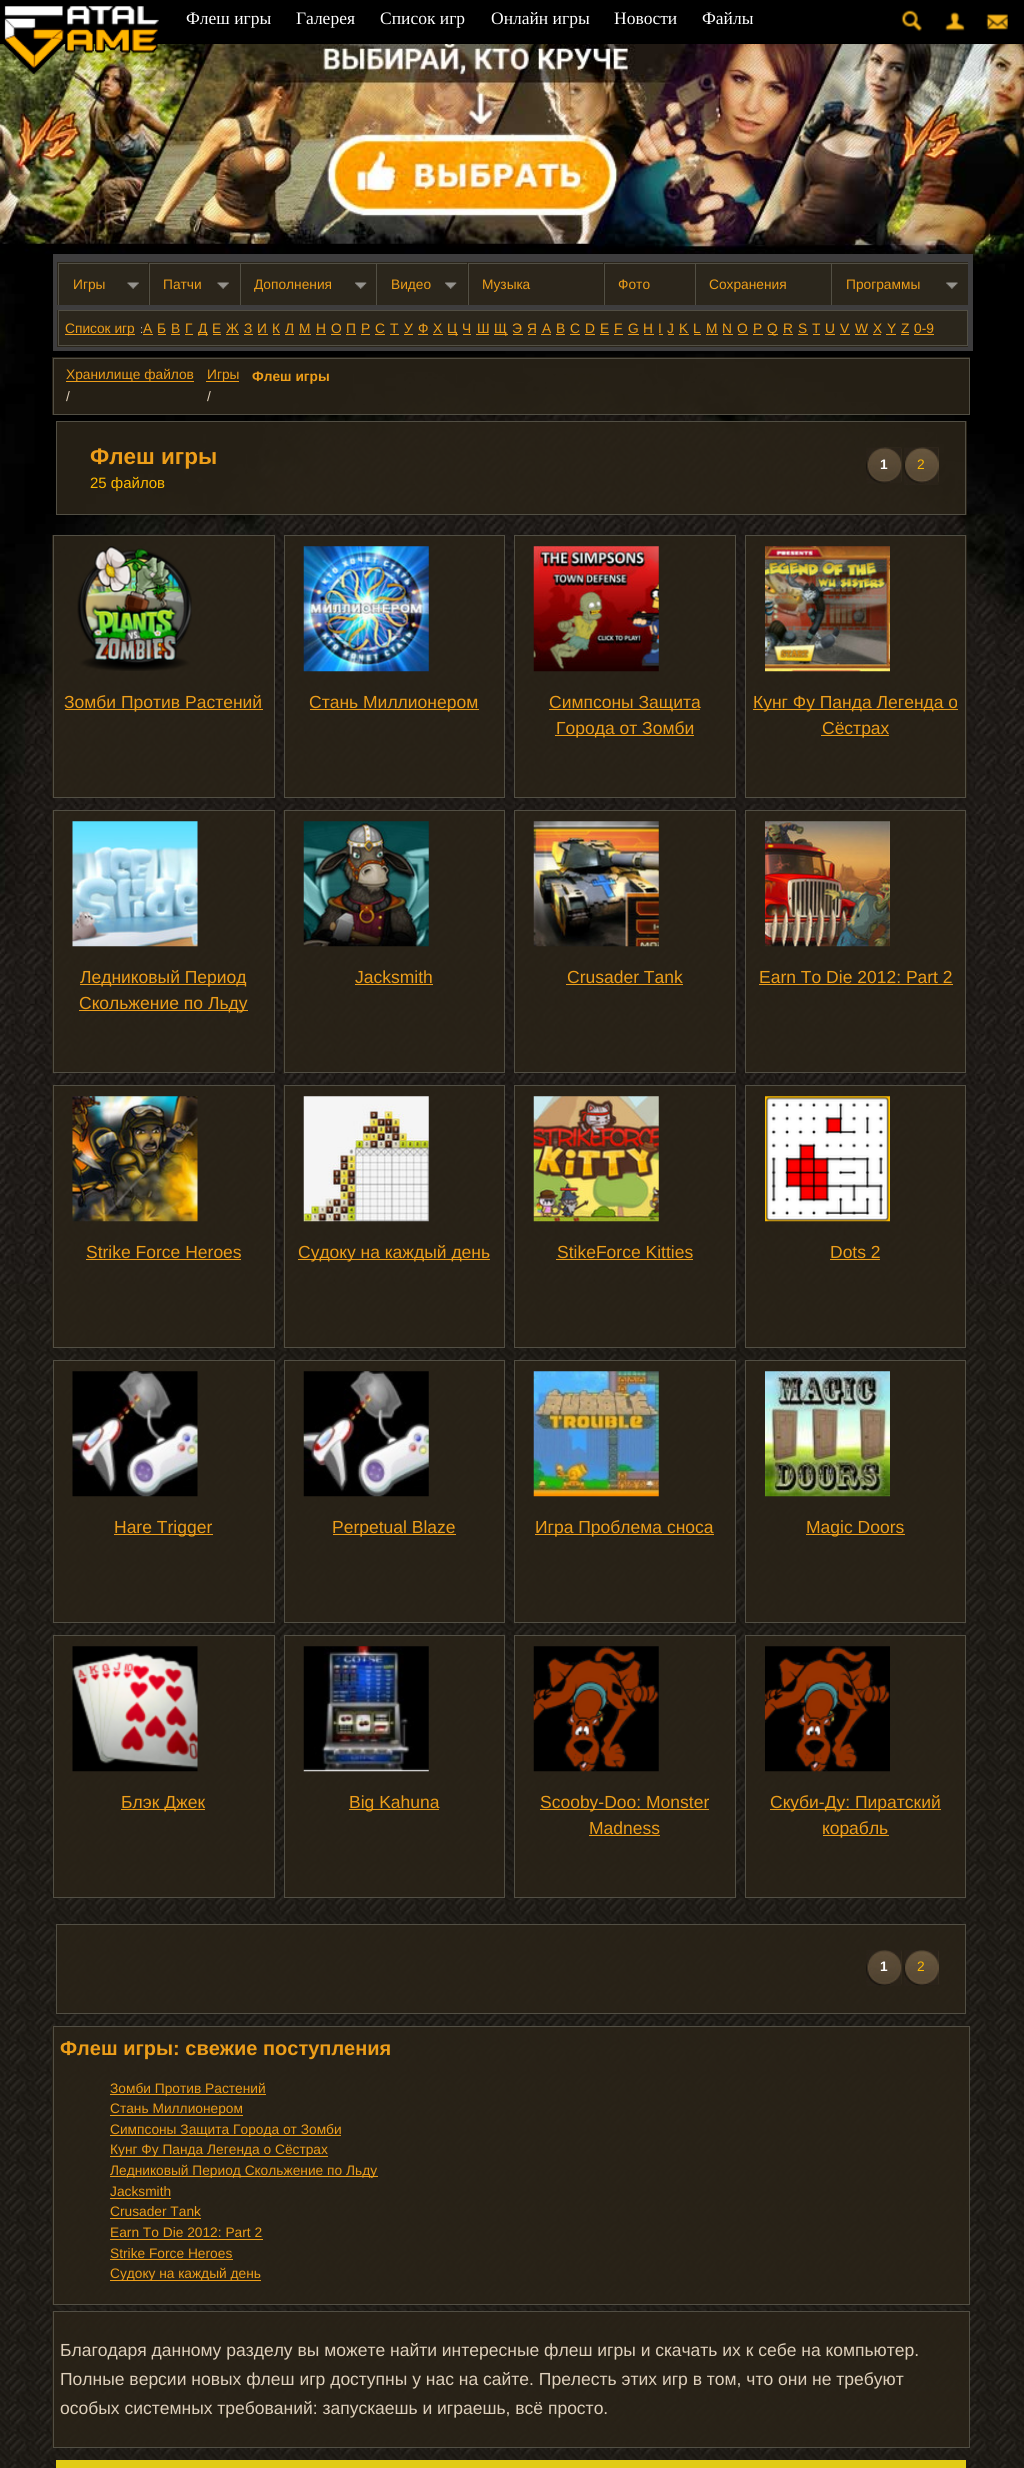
import math
import cairocffi as cairo

surface = cairo.ImageSurface(cairo.FORMAT_RGB24, 1024, 2468)
cr = cairo.Context(surface)
options = cairo.FontOptions()
options.set_hint_metrics(cairo.HINT_METRICS_OFF)
options.set_hint_style(cairo.HINT_STYLE_NONE)
cr.set_font_options(options)
cr.set_miter_limit(4)


def use_color(code):
    cr.set_source_rgb(*(v / 255 for v in bytes.fromhex(code[-6:])))


def picture(path, x, y, w, h):
    cr.save()
    cr.set_source_surface(cairo.ImageSurface.create_from_png(path), x, y)
    cr.rectangle(x, y, w, h)
    cr.fill()
    cr.restore()


use_color("#ffffff")
cr.paint()
picture("img1.png", 0, 1283, 1024, 1185)
picture("img2.png", 0, 44, 1024, 1240)
use_color("#000000")
cr.rectangle(0, 0, 1024, 44)
cr.fill()
picture("img3.png", 3, 6, 156, 68)
cr.select_font_face("Liberation Serif")
cr.set_font_size(17.5)
use_color("#ffffff")
cr.move_to(186, 24)
cr.show_text("Флеш игры")
cr.move_to(296, 24)
cr.show_text("Галерея")
cr.move_to(380, 24)
cr.show_text("Список игр")
cr.move_to(491, 24)
cr.show_text("Онлайн игры")
cr.move_to(614, 24)
cr.show_text("Новости")
cr.move_to(702, 24)
cr.show_text("Файлы")
picture("img4.png", 901, 10, 21, 22)
picture("img5.png", 945, 12, 20, 19)
picture("img6.png", 986, 14, 22, 16)
use_color("#3e3d3e")
cr.rectangle(53, 254, 920, 97)
cr.fill()
use_color("#2b261c")
cr.rectangle(57, 262, 92, 43)
cr.fill()
use_color("#524f44")
cr.rectangle(58, 263, 91, 1)
cr.fill()
cr.rectangle(58, 263, 1, 42)
cr.fill()
cr.select_font_face("Liberation Sans")
cr.set_font_size(13.75)
use_color("#ed9e19")
cr.move_to(73, 289)
cr.show_text("Игры")
picture("img7.png", 127, 282, 12, 7)
cr.set_source_rgba(0.161, 0.137, 0.094, 0.9)
cr.rectangle(148, 262, 92, 43)
cr.fill()
use_color("#524f44")
cr.rectangle(149, 263, 91, 1)
cr.fill()
cr.rectangle(149, 263, 1, 42)
cr.fill()
use_color("#ed9e19")
cr.move_to(163, 289)
cr.show_text("Патчи")
picture("img8.png", 217, 282, 12, 7)
use_color("#2b261c")
cr.rectangle(240, 262, 228, 43)
cr.fill()
use_color("#524f44")
cr.rectangle(240, 263, 228, 1)
cr.fill()
cr.rectangle(240, 263, 1, 42)
cr.fill()
use_color("#ed9e19")
cr.move_to(254, 289)
cr.show_text("Дополнения")
picture("img9.png", 355, 282, 12, 7)
use_color("#524f44")
cr.rectangle(376, 263, 1, 42)
cr.fill()
use_color("#ed9e19")
cr.move_to(391, 289)
cr.show_text("Видео")
picture("img10.png", 445, 282, 12, 7)
cr.set_source_rgba(0.161, 0.137, 0.094, 0.9)
cr.rectangle(467, 262, 137, 43)
cr.fill()
use_color("#524f44")
cr.rectangle(468, 263, 136, 1)
cr.fill()
cr.rectangle(468, 263, 1, 42)
cr.fill()
use_color("#ed9e19")
cr.move_to(482, 289)
cr.show_text("Музыка")
cr.set_source_rgba(0.161, 0.137, 0.094, 0.9)
cr.rectangle(603, 262, 92, 43)
cr.fill()
use_color("#524f44")
cr.rectangle(604, 263, 91, 1)
cr.fill()
cr.rectangle(604, 263, 1, 42)
cr.fill()
use_color("#ed9e19")
cr.move_to(618, 289)
cr.show_text("Фото")
use_color("#2b261c")
cr.rectangle(695, 262, 273, 43)
cr.fill()
use_color("#524f44")
cr.rectangle(695, 263, 273, 1)
cr.fill()
cr.rectangle(695, 263, 1, 42)
cr.fill()
use_color("#ed9e19")
cr.move_to(709, 289)
cr.show_text("Сохранения")
use_color("#524f44")
cr.rectangle(831, 263, 1, 42)
cr.fill()
use_color("#ed9e19")
cr.move_to(846, 289)
cr.show_text("Программы")
picture("img11.png", 946, 282, 12, 7)
use_color("#2b261c")
cr.rectangle(57, 310, 911, 37)
cr.fill()
cr.rectangle(58.5, 310.5, 909, 35)
use_color("#524f44")
cr.set_line_width(1)
cr.stroke()
use_color("#ed9e19")
cr.rectangle(65, 334, 70, 1)
cr.fill()
cr.move_to(65, 333)
cr.show_text("Список игр")
cr.set_font_size(11)
use_color("#dfd0bb")
cr.move_to(140, 333)
cr.show_text(":")
cr.set_font_size(13.75)
use_color("#ed9e19")
cr.move_to(143, 333)
cr.show_text("А")
cr.rectangle(143, 334, 10, 1)
cr.fill()
cr.move_to(157, 333)
cr.show_text("Б")
cr.rectangle(158, 334, 8, 1)
cr.fill()
cr.move_to(171, 333)
cr.show_text("В")
cr.rectangle(171, 334, 9, 1)
cr.fill()
cr.move_to(185, 333)
cr.show_text("Г")
cr.rectangle(185, 334, 8, 1)
cr.fill()
cr.rectangle(198, 334, 10, 1)
cr.fill()
cr.move_to(198, 333)
cr.show_text("Д")
cr.move_to(212, 333)
cr.show_text("Е")
cr.rectangle(213, 334, 8, 1)
cr.fill()
cr.move_to(226, 333)
cr.show_text("Ж")
cr.rectangle(226, 334, 13, 1)
cr.fill()
cr.move_to(244, 333)
cr.show_text("З")
cr.rectangle(244, 334, 9, 1)
cr.fill()
cr.move_to(257, 333)
cr.show_text("И")
cr.rectangle(258, 334, 10, 1)
cr.fill()
cr.move_to(272, 333)
cr.show_text("К")
cr.rectangle(273, 334, 7, 1)
cr.fill()
cr.move_to(285, 333)
cr.show_text("Л")
cr.rectangle(285, 334, 9, 1)
cr.fill()
cr.move_to(299, 333)
cr.show_text("М")
cr.rectangle(299, 334, 12, 1)
cr.fill()
cr.move_to(316, 333)
cr.show_text("Н")
cr.rectangle(316, 334, 10, 1)
cr.fill()
cr.move_to(331, 333)
cr.show_text("О")
cr.rectangle(331, 334, 10, 1)
cr.fill()
cr.move_to(346, 333)
cr.show_text("П")
cr.rectangle(346, 334, 10, 1)
cr.fill()
cr.move_to(361, 333)
cr.show_text("Р")
cr.rectangle(361, 334, 9, 1)
cr.fill()
cr.move_to(375, 333)
cr.show_text("С")
cr.rectangle(375, 334, 10, 1)
cr.fill()
cr.move_to(390, 333)
cr.show_text("Т")
cr.rectangle(390, 334, 9, 1)
cr.fill()
cr.move_to(404, 333)
cr.show_text("У")
cr.rectangle(404, 334, 9, 1)
cr.fill()
cr.move_to(418, 333)
cr.show_text("Ф")
cr.rectangle(418, 334, 10, 1)
cr.fill()
cr.move_to(433, 333)
cr.show_text("Х")
cr.rectangle(433, 334, 10, 1)
cr.fill()
cr.rectangle(448, 334, 10, 1)
cr.fill()
cr.move_to(447, 333)
cr.show_text("Ц")
cr.move_to(462, 333)
cr.show_text("Ч")
cr.rectangle(463, 334, 8, 1)
cr.fill()
cr.move_to(477, 333)
cr.show_text("Ш")
cr.rectangle(476, 334, 13, 1)
cr.fill()
cr.rectangle(494, 334, 14, 1)
cr.fill()
cr.move_to(494, 333)
cr.show_text("Щ")
cr.move_to(512, 333)
cr.show_text("Э")
cr.rectangle(513, 334, 10, 1)
cr.fill()
cr.move_to(527, 333)
cr.show_text("Я")
cr.rectangle(528, 334, 8, 1)
cr.fill()
cr.move_to(542, 333)
cr.show_text("A")
cr.rectangle(541, 334, 10, 1)
cr.fill()
cr.move_to(556, 333)
cr.show_text("B")
cr.rectangle(556, 334, 9, 1)
cr.fill()
cr.move_to(570, 333)
cr.show_text("C")
cr.rectangle(570, 334, 10, 1)
cr.fill()
cr.move_to(585, 333)
cr.show_text("D")
cr.rectangle(585, 334, 10, 1)
cr.fill()
cr.move_to(600, 333)
cr.show_text("E")
cr.rectangle(600, 334, 9, 1)
cr.fill()
cr.move_to(614, 333)
cr.show_text("F")
cr.rectangle(614, 334, 9, 1)
cr.fill()
cr.move_to(628, 333)
cr.show_text("G")
cr.rectangle(628, 334, 11, 1)
cr.fill()
cr.move_to(643, 333)
cr.show_text("H")
cr.rectangle(644, 334, 10, 1)
cr.fill()
cr.move_to(658, 333)
cr.show_text("I")
cr.rectangle(659, 334, 4, 1)
cr.fill()
cr.move_to(667, 333)
cr.show_text("J")
cr.rectangle(668, 334, 6, 1)
cr.fill()
cr.move_to(679, 333)
cr.show_text("K")
cr.rectangle(679, 334, 10, 1)
cr.fill()
cr.move_to(693, 333)
cr.show_text("L")
cr.rectangle(694, 334, 7, 1)
cr.fill()
cr.move_to(706, 333)
cr.show_text("M")
cr.rectangle(706, 334, 12, 1)
cr.fill()
cr.move_to(722, 333)
cr.show_text("N")
cr.rectangle(723, 334, 10, 1)
cr.fill()
cr.move_to(737, 333)
cr.show_text("O")
cr.rectangle(738, 334, 10, 1)
cr.fill()
cr.move_to(753, 333)
cr.show_text("P")
cr.rectangle(753, 334, 10, 1)
cr.fill()
cr.rectangle(768, 334, 10, 1)
cr.fill()
cr.move_to(767, 333)
cr.show_text("Q")
cr.move_to(783, 333)
cr.show_text("R")
cr.rectangle(783, 334, 10, 1)
cr.fill()
cr.move_to(798, 333)
cr.show_text("S")
cr.rectangle(798, 334, 10, 1)
cr.fill()
cr.move_to(812, 333)
cr.show_text("T")
cr.rectangle(813, 334, 7, 1)
cr.fill()
cr.move_to(825, 333)
cr.show_text("U")
cr.rectangle(825, 334, 10, 1)
cr.fill()
cr.move_to(840, 333)
cr.show_text("V")
cr.rectangle(840, 334, 10, 1)
cr.fill()
cr.move_to(855, 333)
cr.show_text("W")
cr.rectangle(855, 334, 13, 1)
cr.fill()
cr.move_to(873, 333)
cr.show_text("X")
cr.rectangle(873, 334, 8, 1)
cr.fill()
cr.move_to(887, 333)
cr.show_text("Y")
cr.rectangle(886, 334, 10, 1)
cr.fill()
cr.move_to(901, 333)
cr.show_text("Z")
cr.rectangle(901, 334, 8, 1)
cr.fill()
cr.move_to(914, 333)
cr.show_text("0-9")
cr.rectangle(914, 334, 20, 1)
cr.fill()
cr.set_source_rgba(0.161, 0.137, 0.094, 0.9)
cr.rectangle(52, 357, 918, 58)
cr.fill()
cr.rectangle(53.5, 358.5, 916, 56)
use_color("#524f44")
cr.stroke()
use_color("#ed9e19")
cr.rectangle(66, 381, 128, 1)
cr.fill()
cr.move_to(66, 379)
cr.show_text("Хранилище файлов")
use_color("#dfd0bb")
cr.move_to(66, 401)
cr.show_text("/")
use_color("#ed9e19")
cr.rectangle(206, 381, 33, 1)
cr.fill()
cr.move_to(207, 379)
cr.show_text("Игры")
use_color("#dfd0bb")
cr.move_to(207, 401)
cr.show_text("/")
cr.select_font_face("Liberation Sans", cairo.FONT_SLANT_NORMAL, cairo.FONT_WEIGHT_BOLD)
use_color("#ed9e19")
cr.move_to(252, 381)
cr.show_text("Флеш игры")
cr.set_source_rgba(0.161, 0.137, 0.094, 0.9)
cr.rectangle(57, 421, 910, 94)
cr.fill()
cr.rectangle(56.5, 421.5, 909, 93)
use_color("#524f44")
cr.stroke()
cr.set_font_size(22.5)
use_color("#ed9e19")
cr.move_to(90, 464)
cr.show_text("Флеш игры")
cr.select_font_face("Liberation Sans")
cr.set_font_size(15)
use_color("#ffba00")
cr.move_to(90, 488)
cr.show_text("25 файлов")
picture("img12.png", 866, 447, 36, 37)
picture("img13.png", 884, 447, 18, 37)
cr.select_font_face("Liberation Sans", cairo.FONT_SLANT_NORMAL, cairo.FONT_WEIGHT_BOLD)
cr.set_font_size(13.75)
use_color("#ffffff")
cr.move_to(880, 469)
cr.show_text("1")
picture("img14.png", 903, 447, 36, 38)
picture("img15.png", 921, 447, 18, 37)
cr.select_font_face("Liberation Sans")
use_color("#ffba00")
cr.move_to(917, 469)
cr.show_text("2")
cr.set_source_rgba(0.161, 0.137, 0.094, 0.9)
cr.rectangle(52, 535, 222, 263)
cr.fill()
cr.rectangle(53.5, 535.5, 221, 262)
use_color("#524f44")
cr.stroke()
picture("img16.png", 77, 546, 115, 125)
use_color("#ed9e19")
cr.rectangle(65, 709, 198, 1)
cr.fill()
cr.set_font_size(17.5)
cr.move_to(64, 708)
cr.show_text("Зомби Против Растений")
cr.set_source_rgba(0.161, 0.137, 0.094, 0.9)
cr.rectangle(284.5, 535.5, 220, 262)
cr.fill_preserve()
use_color("#524f44")
cr.stroke()
picture("img17.png", 303, 546, 126, 126)
use_color("#ed9e19")
cr.rectangle(310, 709, 169, 1)
cr.fill()
cr.move_to(309, 708)
cr.show_text("Стань Миллионером")
cr.set_source_rgba(0.161, 0.137, 0.094, 0.9)
cr.rectangle(514.5, 535.5, 221, 262)
cr.fill_preserve()
use_color("#524f44")
cr.stroke()
picture("img18.png", 533, 546, 126, 126)
use_color("#ed9e19")
cr.rectangle(549, 709, 151, 1)
cr.fill()
cr.move_to(549, 708)
cr.show_text("Симпсоны Защита")
cr.rectangle(555, 735, 139, 1)
cr.fill()
cr.move_to(556, 734)
cr.show_text("Города от Зомби")
cr.set_source_rgba(0.161, 0.137, 0.094, 0.9)
cr.rectangle(746, 535, 221, 263)
cr.fill()
cr.rectangle(745.5, 535.5, 220, 262)
use_color("#524f44")
cr.stroke()
picture("img19.png", 765, 546, 125, 126)
use_color("#ed9e19")
cr.rectangle(753, 709, 205, 1)
cr.fill()
cr.move_to(753, 708)
cr.show_text("Кунг Фу Панда Легенда о")
cr.rectangle(821, 735, 68, 1)
cr.fill()
cr.move_to(822, 734)
cr.show_text("Сёстрах")
cr.set_source_rgba(0.161, 0.137, 0.094, 0.9)
cr.rectangle(52, 810, 222, 263)
cr.fill()
cr.rectangle(53.5, 810.5, 221, 262)
use_color("#524f44")
cr.stroke()
picture("img20.png", 72, 821, 126, 126)
use_color("#ed9e19")
cr.rectangle(80, 984, 166, 1)
cr.fill()
cr.move_to(80, 983)
cr.show_text("Ледниковый Период")
cr.rectangle(79, 1010, 169, 1)
cr.fill()
cr.move_to(79, 1009)
cr.show_text("Скольжение по Льду")
cr.set_source_rgba(0.161, 0.137, 0.094, 0.9)
cr.rectangle(283, 810, 221, 263)
cr.fill()
cr.rectangle(284.5, 810.5, 220, 262)
use_color("#524f44")
cr.stroke()
picture("img21.png", 303, 821, 126, 126)
use_color("#ed9e19")
cr.move_to(355, 983)
cr.show_text("Jacksmith")
cr.rectangle(355, 984, 78, 1)
cr.fill()
cr.set_source_rgba(0.161, 0.137, 0.094, 0.9)
cr.rectangle(514.5, 810.5, 221, 262)
cr.fill_preserve()
use_color("#524f44")
cr.stroke()
picture("img22.png", 533, 821, 126, 126)
use_color("#ed9e19")
cr.move_to(567, 983)
cr.show_text("Crusader Tank")
cr.rectangle(566, 984, 117, 1)
cr.fill()
cr.set_source_rgba(0.161, 0.137, 0.094, 0.9)
cr.rectangle(745.5, 810.5, 220, 262)
cr.fill_preserve()
use_color("#524f44")
cr.stroke()
picture("img23.png", 765, 821, 125, 126)
use_color("#ed9e19")
cr.move_to(759, 983)
cr.show_text("Earn To Die 2012: Part 2")
cr.rectangle(759, 984, 194, 1)
cr.fill()
cr.set_source_rgba(0.161, 0.137, 0.094, 0.9)
cr.rectangle(52, 1085, 222, 263)
cr.fill()
cr.rectangle(53.5, 1085.5, 221, 262)
use_color("#524f44")
cr.stroke()
picture("img24.png", 72, 1096, 126, 126)
use_color("#ed9e19")
cr.move_to(86, 1258)
cr.show_text("Strike Force Heroes")
cr.rectangle(86, 1259, 155, 1)
cr.fill()
cr.set_source_rgba(0.161, 0.137, 0.094, 0.9)
cr.rectangle(283, 1085, 221, 263)
cr.fill()
cr.rectangle(284.5, 1085.5, 220, 262)
use_color("#524f44")
cr.stroke()
picture("img25.png", 303, 1096, 126, 126)
use_color("#ed9e19")
cr.rectangle(298, 1259, 192, 1)
cr.fill()
cr.move_to(298, 1258)
cr.show_text("Судоку на каждый день")
cr.set_source_rgba(0.161, 0.137, 0.094, 0.9)
cr.rectangle(514.5, 1085.5, 221, 262)
cr.fill_preserve()
use_color("#524f44")
cr.stroke()
picture("img26.png", 533, 1096, 126, 126)
use_color("#ed9e19")
cr.move_to(557, 1258)
cr.show_text("StikeForce Kitties")
cr.rectangle(556, 1259, 137, 1)
cr.fill()
cr.set_source_rgba(0.161, 0.137, 0.094, 0.9)
cr.rectangle(745.5, 1085.5, 220, 262)
cr.fill_preserve()
use_color("#524f44")
cr.stroke()
picture("img27.png", 765, 1096, 125, 126)
use_color("#ed9e19")
cr.move_to(830, 1258)
cr.show_text("Dots 2")
cr.rectangle(830, 1259, 50, 1)
cr.fill()
cr.set_source_rgba(0.161, 0.137, 0.094, 0.9)
cr.rectangle(53.5, 1360.5, 221, 262)
cr.fill_preserve()
use_color("#524f44")
cr.stroke()
picture("img28.png", 72, 1371, 126, 126)
use_color("#ed9e19")
cr.rectangle(114, 1534, 99, 1)
cr.fill()
cr.move_to(114, 1533)
cr.show_text("Hare Trigger")
cr.set_source_rgba(0.161, 0.137, 0.094, 0.9)
cr.rectangle(284.5, 1360.5, 220, 262)
cr.fill_preserve()
use_color("#524f44")
cr.stroke()
picture("img29.png", 303, 1371, 126, 126)
use_color("#ed9e19")
cr.rectangle(333, 1534, 123, 1)
cr.fill()
cr.move_to(332, 1533)
cr.show_text("Perpetual Blaze")
cr.set_source_rgba(0.161, 0.137, 0.094, 0.9)
cr.rectangle(514.5, 1360.5, 221, 262)
cr.fill_preserve()
use_color("#524f44")
cr.stroke()
picture("img30.png", 533, 1371, 126, 126)
use_color("#ed9e19")
cr.rectangle(535, 1534, 179, 1)
cr.fill()
cr.move_to(535, 1533)
cr.show_text("Игра Проблема сноса")
cr.set_source_rgba(0.161, 0.137, 0.094, 0.9)
cr.rectangle(745.5, 1360.5, 220, 262)
cr.fill_preserve()
use_color("#524f44")
cr.stroke()
picture("img31.png", 765, 1371, 125, 126)
use_color("#ed9e19")
cr.rectangle(806, 1534, 99, 1)
cr.fill()
cr.move_to(806, 1533)
cr.show_text("Magic Doors")
cr.set_source_rgba(0.161, 0.137, 0.094, 0.9)
cr.rectangle(53.5, 1635.5, 221, 262)
cr.fill_preserve()
use_color("#524f44")
cr.stroke()
picture("img32.png", 72, 1646, 126, 126)
use_color("#ed9e19")
cr.rectangle(121, 1809, 84, 1)
cr.fill()
cr.move_to(121, 1808)
cr.show_text("Блэк Джек")
cr.set_source_rgba(0.161, 0.137, 0.094, 0.9)
cr.rectangle(284.5, 1635.5, 220, 262)
cr.fill_preserve()
use_color("#524f44")
cr.stroke()
picture("img33.png", 303, 1646, 126, 126)
use_color("#ed9e19")
cr.rectangle(349, 1809, 90, 1)
cr.fill()
cr.move_to(349, 1808)
cr.show_text("Big Kahuna")
cr.set_source_rgba(0.161, 0.137, 0.094, 0.9)
cr.rectangle(514.5, 1635.5, 221, 262)
cr.fill_preserve()
use_color("#524f44")
cr.stroke()
picture("img34.png", 533, 1646, 126, 126)
use_color("#ed9e19")
cr.rectangle(540, 1809, 169, 1)
cr.fill()
cr.move_to(540, 1808)
cr.show_text("Scooby-Doo: Monster")
cr.move_to(589, 1834)
cr.show_text("Madness")
cr.rectangle(589, 1835, 71, 1)
cr.fill()
cr.set_source_rgba(0.161, 0.137, 0.094, 0.9)
cr.rectangle(745.5, 1635.5, 220, 262)
cr.fill_preserve()
use_color("#524f44")
cr.stroke()
picture("img35.png", 765, 1646, 125, 126)
use_color("#ed9e19")
cr.rectangle(770, 1809, 171, 1)
cr.fill()
cr.move_to(770, 1808)
cr.show_text("Скуби-Ду: Пиратский")
cr.rectangle(823, 1835, 66, 1)
cr.fill()
cr.move_to(822, 1834)
cr.show_text("корабль")
cr.set_source_rgba(0.161, 0.137, 0.094, 0.9)
cr.rectangle(56.5, 1924.5, 909, 89)
cr.fill_preserve()
use_color("#524f44")
cr.stroke()
picture("img36.png", 866, 1950, 36, 36)
picture("img37.png", 886, 1950, 16, 36)
cr.select_font_face("Liberation Sans", cairo.FONT_SLANT_NORMAL, cairo.FONT_WEIGHT_BOLD)
cr.set_font_size(13.75)
use_color("#ffffff")
cr.move_to(880, 1971)
cr.show_text("1")
picture("img38.png", 903, 1950, 36, 36)
picture("img39.png", 923, 1950, 16, 35)
cr.select_font_face("Liberation Sans")
use_color("#ffba00")
cr.move_to(917, 1971)
cr.show_text("2")
cr.set_source_rgba(0.161, 0.137, 0.094, 0.9)
cr.rectangle(52, 2026, 917, 279)
cr.fill()
cr.rectangle(53.5, 2026.5, 916, 278)
use_color("#524f44")
cr.stroke()
cr.select_font_face("Liberation Sans", cairo.FONT_SLANT_NORMAL, cairo.FONT_WEIGHT_BOLD)
cr.set_font_size(20)
use_color("#ed9e19")
cr.move_to(60, 2055)
cr.show_text("Флеш игры: свежие поступления")
cr.rectangle(110, 2094, 156, 1)
cr.fill()
cr.select_font_face("Liberation Sans")
cr.set_font_size(13.75)
cr.move_to(110, 2093)
cr.show_text("Зомби Против Растений")
cr.rectangle(110, 2115, 133, 1)
cr.fill()
cr.move_to(110, 2113)
cr.show_text("Стань Миллионером")
cr.rectangle(110, 2135, 231, 1)
cr.fill()
cr.move_to(110, 2134)
cr.show_text("Симпсоны Защита Города от Зомби")
cr.rectangle(110, 2156, 218, 1)
cr.fill()
cr.move_to(110, 2154)
cr.show_text("Кунг Фу Панда Легенда о Сёстрах")
cr.rectangle(110, 2176, 268, 1)
cr.fill()
cr.move_to(110, 2175)
cr.show_text("Ледниковый Период Скольжение по Льду")
cr.move_to(110, 2196)
cr.show_text("Jacksmith")
cr.rectangle(110, 2198, 61, 1)
cr.fill()
cr.move_to(110, 2216)
cr.show_text("Crusader Tank")
cr.rectangle(110, 2218, 91, 1)
cr.fill()
cr.move_to(110, 2237)
cr.show_text("Earn To Die 2012: Part 2")
cr.rectangle(110, 2239, 153, 1)
cr.fill()
cr.move_to(110, 2258)
cr.show_text("Strike Force Heroes")
cr.rectangle(110, 2259, 123, 1)
cr.fill()
cr.rectangle(110, 2280, 151, 1)
cr.fill()
cr.move_to(110, 2278)
cr.show_text("Судоку на каждый день")
cr.set_source_rgba(0.161, 0.137, 0.094, 0.9)
cr.rectangle(52, 2311, 917, 137)
cr.fill()
cr.rectangle(53.5, 2311.5, 916, 136)
use_color("#524f44")
cr.stroke()
cr.set_font_size(17.5)
use_color("#dfd0bb")
cr.move_to(60, 2356)
cr.show_text("Благодаря данному разделу вы можете найти интересные флеш игры и скачать их к себе на компьютер.")
cr.move_to(60, 2385)
cr.show_text("Полные версии новых флеш игр доступны у нас на сайте. Прелесть этих игр в том, что они не требуют")
cr.move_to(60, 2414)
cr.show_text("особых системных требований: запускаешь и играешь, всё просто.")
use_color("#e1cb15")
cr.rectangle(56, 2460, 910, 8)
cr.fill()
surface.write_to_png("result.png")
